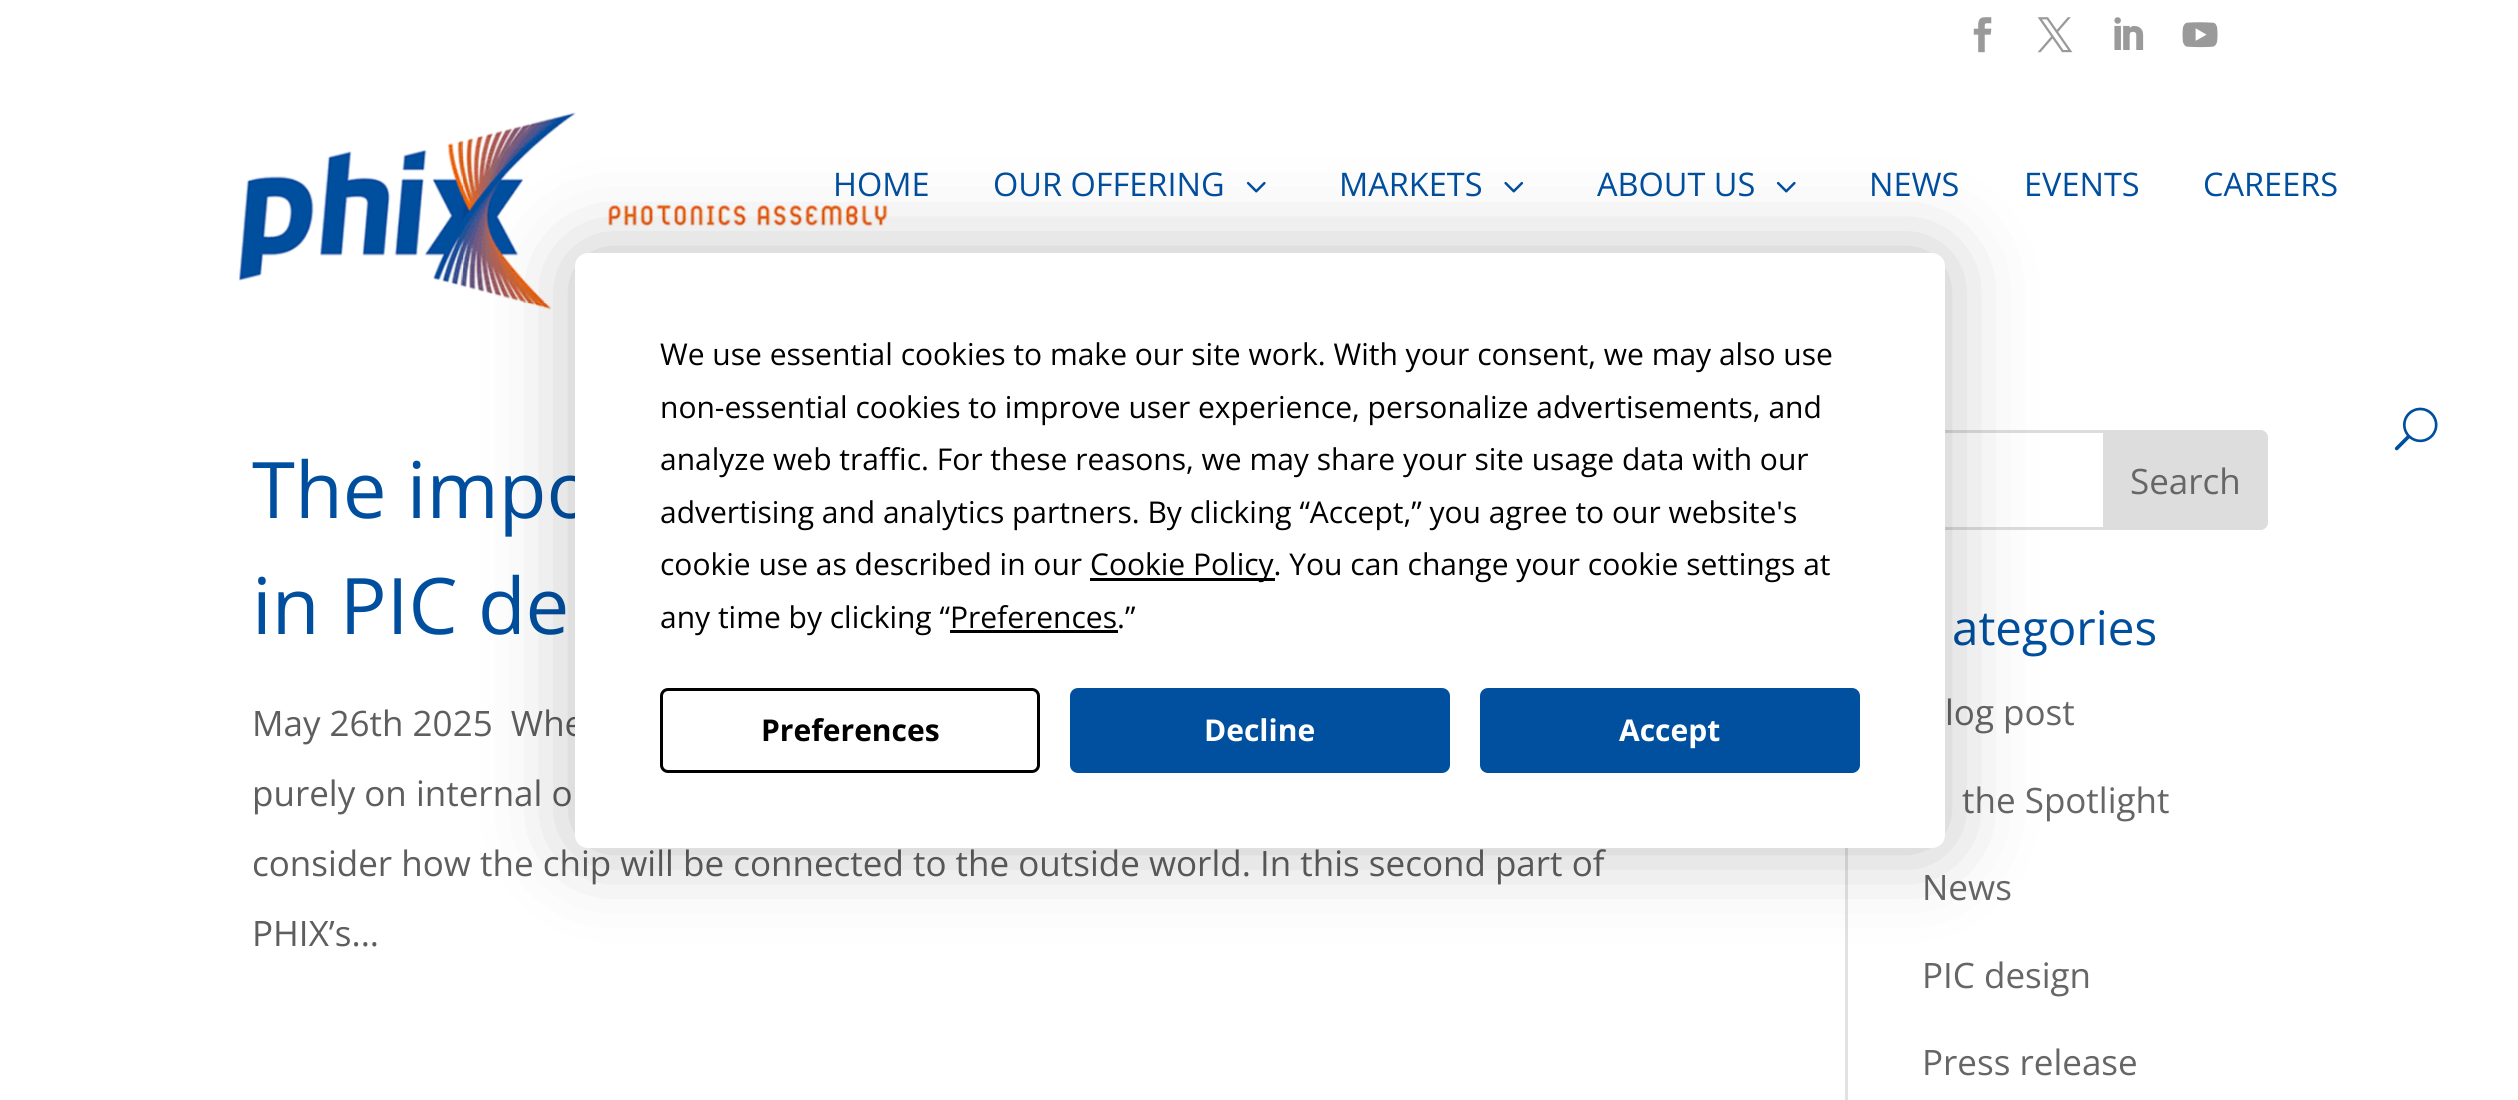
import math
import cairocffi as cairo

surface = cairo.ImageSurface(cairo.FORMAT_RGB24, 2518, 1100)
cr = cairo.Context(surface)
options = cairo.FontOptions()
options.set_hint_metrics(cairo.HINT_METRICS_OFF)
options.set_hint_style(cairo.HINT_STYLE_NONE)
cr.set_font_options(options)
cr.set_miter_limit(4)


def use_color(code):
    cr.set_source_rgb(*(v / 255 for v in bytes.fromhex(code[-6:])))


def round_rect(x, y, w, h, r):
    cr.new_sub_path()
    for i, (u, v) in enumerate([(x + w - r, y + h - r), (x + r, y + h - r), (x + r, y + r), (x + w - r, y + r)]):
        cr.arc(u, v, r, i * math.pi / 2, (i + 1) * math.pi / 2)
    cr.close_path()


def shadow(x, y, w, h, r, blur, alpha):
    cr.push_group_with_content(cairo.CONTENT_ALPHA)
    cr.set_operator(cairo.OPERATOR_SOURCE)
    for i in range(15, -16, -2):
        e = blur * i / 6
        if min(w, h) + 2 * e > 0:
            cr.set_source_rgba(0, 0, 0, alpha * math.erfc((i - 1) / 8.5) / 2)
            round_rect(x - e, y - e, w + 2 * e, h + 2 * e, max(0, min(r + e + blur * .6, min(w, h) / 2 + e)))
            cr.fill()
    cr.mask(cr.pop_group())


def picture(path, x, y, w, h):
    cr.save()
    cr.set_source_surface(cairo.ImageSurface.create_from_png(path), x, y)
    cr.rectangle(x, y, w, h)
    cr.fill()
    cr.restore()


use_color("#ffffff")
cr.paint()
picture("img1.png", 1973, 17, 19, 36)
picture("img2.png", 2037, 17, 36, 36)
picture("img3.png", 2114, 17, 30, 33)
picture("img4.png", 2182, 22, 36, 26)
picture("img5.png", 238, 112, 650, 198)
cr.select_font_face("Open Sans")
cr.set_font_size(32.5)
use_color("#004f9f")
cr.move_to(833, 196)
cr.show_text("HOME")
cr.move_to(993, 196)
cr.show_text("OUR OFFERING")
picture("img6.png", 1246, 181, 20, 12)
cr.move_to(1339, 196)
cr.show_text("MARKETS")
picture("img7.png", 1504, 181, 20, 12)
cr.move_to(1597, 196)
cr.show_text("ABOUT US")
picture("img6.png", 1776, 181, 20, 12)
cr.move_to(1869, 196)
cr.show_text("NEWS")
cr.move_to(2024, 196)
cr.show_text("EVENTS")
cr.move_to(2203, 196)
cr.show_text("CAREERS")
picture("img8.png", 2394, 407, 44, 44)
cr.set_font_size(78)
cr.move_to(252, 518)
cr.show_text("The impo")
cr.move_to(252, 634)
cr.show_text("in PIC de")
cr.set_font_size(35)
use_color("#5e5e5e")
cr.move_to(252, 736)
cr.show_text("May 26th 2025  Whe")
cr.move_to(252, 806)
cr.show_text("purely on internal o")
cr.move_to(252, 876)
cr.show_text("consider how the chip will be connected to the outside world. In this second part of")
cr.move_to(252, 946)
cr.show_text("PHIX’s...")
round_rect(1924.5, 431.5, 342, 97, 6.5)
use_color("#dddddd")
cr.set_line_width(3)
cr.stroke()
cr.new_path()
cr.move_to(2104.5, 431.5)
cr.line_to(2260, 431.5)
cr.curve_to(2263.5, 431.5, 2266.5, 434.5, 2266.5, 438)
cr.line_to(2266.5, 522)
cr.curve_to(2266.5, 525.5, 2263.5, 528.5, 2260, 528.5)
cr.line_to(2104.5, 528.5)
cr.close_path()
cr.fill_preserve()
cr.stroke()
use_color("#666666")
cr.move_to(2130, 494)
cr.show_text("Search")
cr.set_font_size(47.5)
use_color("#004f9f")
cr.move_to(1952, 645)
cr.show_text("ategories")
cr.set_font_size(35)
use_color("#666666")
cr.move_to(1945, 725)
cr.show_text("log post")
cr.move_to(1962, 813)
cr.show_text("the Spotlight")
cr.move_to(1922, 900)
cr.show_text("News")
cr.move_to(1922, 988)
cr.show_text("PIC design")
cr.move_to(1922, 1075)
cr.show_text("Press release")
use_color("#e2e2e2")
cr.rectangle(1845, 848, 3, 252)
cr.fill()
use_color("#000000")
shadow(575, 253, 1370, 595, 13, 44, 0.25)
use_color("#ffffff")
round_rect(575, 253, 1370, 595, 13)
cr.fill()
cr.set_font_size(30)
use_color("#000000")
cr.move_to(660, 365)
cr.show_text("We use essential cookies to make our site work. With your consent, we may also use")
cr.move_to(660, 418)
cr.show_text("non-essential cookies to improve user experience, personalize advertisements, and")
cr.move_to(660, 470)
cr.show_text("analyze web traffic. For these reasons, we may share your site usage data with our")
cr.move_to(660, 523)
cr.show_text("advertising and analytics partners. By clicking “Accept,” you agree to our website's")
cr.move_to(660, 575)
cr.show_text("cookie use as described in our")
cr.rectangle(1090, 578, 185, 3)
cr.fill()
cr.move_to(1090, 575)
cr.show_text("Cookie Policy. You can change your cookie settings at")
cr.move_to(660, 628)
cr.show_text("any time by clicking “Preferences.”")
cr.rectangle(950, 630, 168, 3)
cr.fill()
round_rect(661.5, 689.5, 377, 82, 6.5)
cr.stroke()
cr.select_font_face("Open Sans", cairo.FONT_SLANT_NORMAL, cairo.FONT_WEIGHT_BOLD)
cr.move_to(761, 741)
cr.show_text("Preferences")
use_color("#01509f")
round_rect(1071.5, 689.5, 377, 82, 6.5)
cr.fill_preserve()
cr.stroke()
use_color("#ffffff")
cr.move_to(1204, 741)
cr.show_text("Decline")
use_color("#01509f")
round_rect(1481.5, 689.5, 377, 82, 6.5)
cr.fill_preserve()
cr.stroke()
use_color("#ffffff")
cr.move_to(1619, 741)
cr.show_text("Accept")
surface.write_to_png("result.png")
